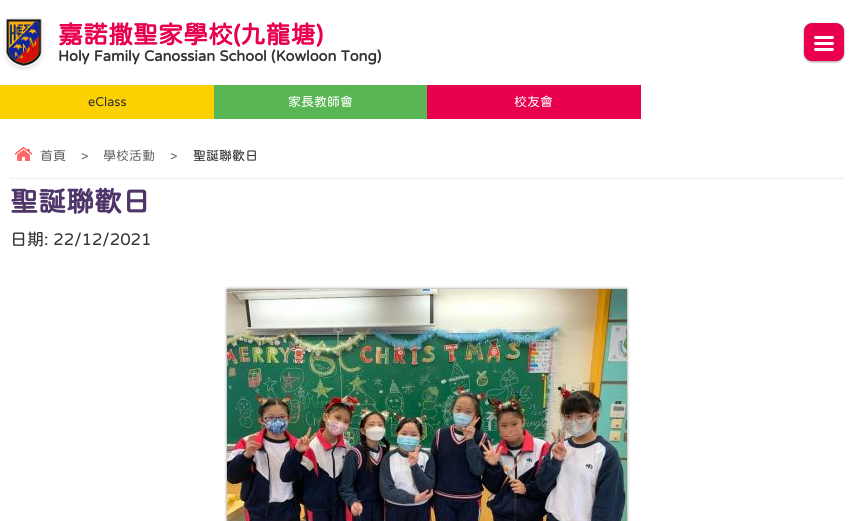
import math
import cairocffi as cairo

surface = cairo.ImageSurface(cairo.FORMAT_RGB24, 854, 521)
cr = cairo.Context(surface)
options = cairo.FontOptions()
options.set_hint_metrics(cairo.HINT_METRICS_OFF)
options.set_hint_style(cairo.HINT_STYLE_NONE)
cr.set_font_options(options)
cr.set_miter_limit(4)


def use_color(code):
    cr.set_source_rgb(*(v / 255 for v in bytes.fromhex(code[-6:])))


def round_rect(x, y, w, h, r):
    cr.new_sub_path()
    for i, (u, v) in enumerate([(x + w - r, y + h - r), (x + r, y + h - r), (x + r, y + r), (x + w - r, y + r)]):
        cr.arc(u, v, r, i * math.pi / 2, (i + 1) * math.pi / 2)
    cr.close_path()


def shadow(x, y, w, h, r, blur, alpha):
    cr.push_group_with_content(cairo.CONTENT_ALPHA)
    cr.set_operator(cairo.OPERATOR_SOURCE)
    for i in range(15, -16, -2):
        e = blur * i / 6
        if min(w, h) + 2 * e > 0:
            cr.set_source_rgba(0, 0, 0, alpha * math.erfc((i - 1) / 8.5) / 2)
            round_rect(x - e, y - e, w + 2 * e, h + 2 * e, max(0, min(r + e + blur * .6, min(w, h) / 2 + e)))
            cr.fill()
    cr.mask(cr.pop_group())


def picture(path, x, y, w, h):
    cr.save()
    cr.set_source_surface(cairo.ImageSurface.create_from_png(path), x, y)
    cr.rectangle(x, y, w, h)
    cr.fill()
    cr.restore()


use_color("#ffffff")
cr.paint()
picture("img1.png", 3, 17, 42, 54)
cr.select_font_face("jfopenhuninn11", cairo.FONT_SLANT_NORMAL, cairo.FONT_WEIGHT_BOLD)
cr.set_font_size(25)
use_color("#e8004c")
cr.move_to(58, 43)
cr.show_text("嘉諾撒聖家學校(九龍塘)")
cr.set_font_size(15)
use_color("#333333")
cr.move_to(58, 61)
cr.show_text("Holy Family Canossian School (Kowloon Tong)")
use_color("#fdd000")
cr.rectangle(0, 85, 214, 34)
cr.fill()
cr.select_font_face("jfopenhuninn11")
cr.set_font_size(13)
use_color("#333333")
cr.move_to(88, 106)
cr.show_text("eClass")
use_color("#5ab655")
cr.rectangle(214, 85, 213, 34)
cr.fill()
use_color("#ffffff")
cr.move_to(288, 106)
cr.show_text("家長教師會")
use_color("#e8004c")
cr.rectangle(427, 85, 214, 34)
cr.fill()
use_color("#ffffff")
cr.move_to(514, 106)
cr.show_text("校友會")
use_color("#000000")
shadow(804, 24, 40, 38, 8, 1, 0.4)
use_color("#e8004c")
round_rect(804, 23, 40, 38, 8)
cr.fill()
use_color("#ffffff")
round_rect(814, 36, 20, 3, 1.5)
cr.fill()
round_rect(814, 42, 20, 3, 1.5)
cr.fill()
round_rect(814, 48, 20, 3, 1.5)
cr.fill()
cr.new_path()
cr.move_to(10, 178.5)
cr.line_to(844, 178.5)
use_color("#dddddd")
cr.set_line_width(1)
cr.set_dash([1, 1])
cr.stroke()
picture("img2.png", 15, 147, 17, 14)
use_color("#666666")
cr.move_to(40, 160)
cr.show_text("首頁")
cr.move_to(81, 160)
cr.show_text(">")
cr.move_to(103, 160)
cr.show_text("學校活動")
cr.move_to(170, 160)
cr.show_text(">")
use_color("#333333")
cr.move_to(193, 160)
cr.show_text("聖誕聯歡日")
cr.select_font_face("jfopenhuninn11", cairo.FONT_SLANT_NORMAL, cairo.FONT_WEIGHT_BOLD)
cr.set_font_size(28)
use_color("#4f366a")
cr.move_to(10, 211)
cr.show_text("聖誕聯歡日")
cr.select_font_face("jfopenhuninn11")
cr.set_font_size(17)
use_color("#333333")
cr.move_to(10, 245)
cr.show_text("日期: 22/12/2021")
use_color("#000000")
shadow(227, 289, 400, 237, 0, 1.5, 0.5)
picture("img3.png", 227, 289, 400, 232)
surface.write_to_png("result.png")
